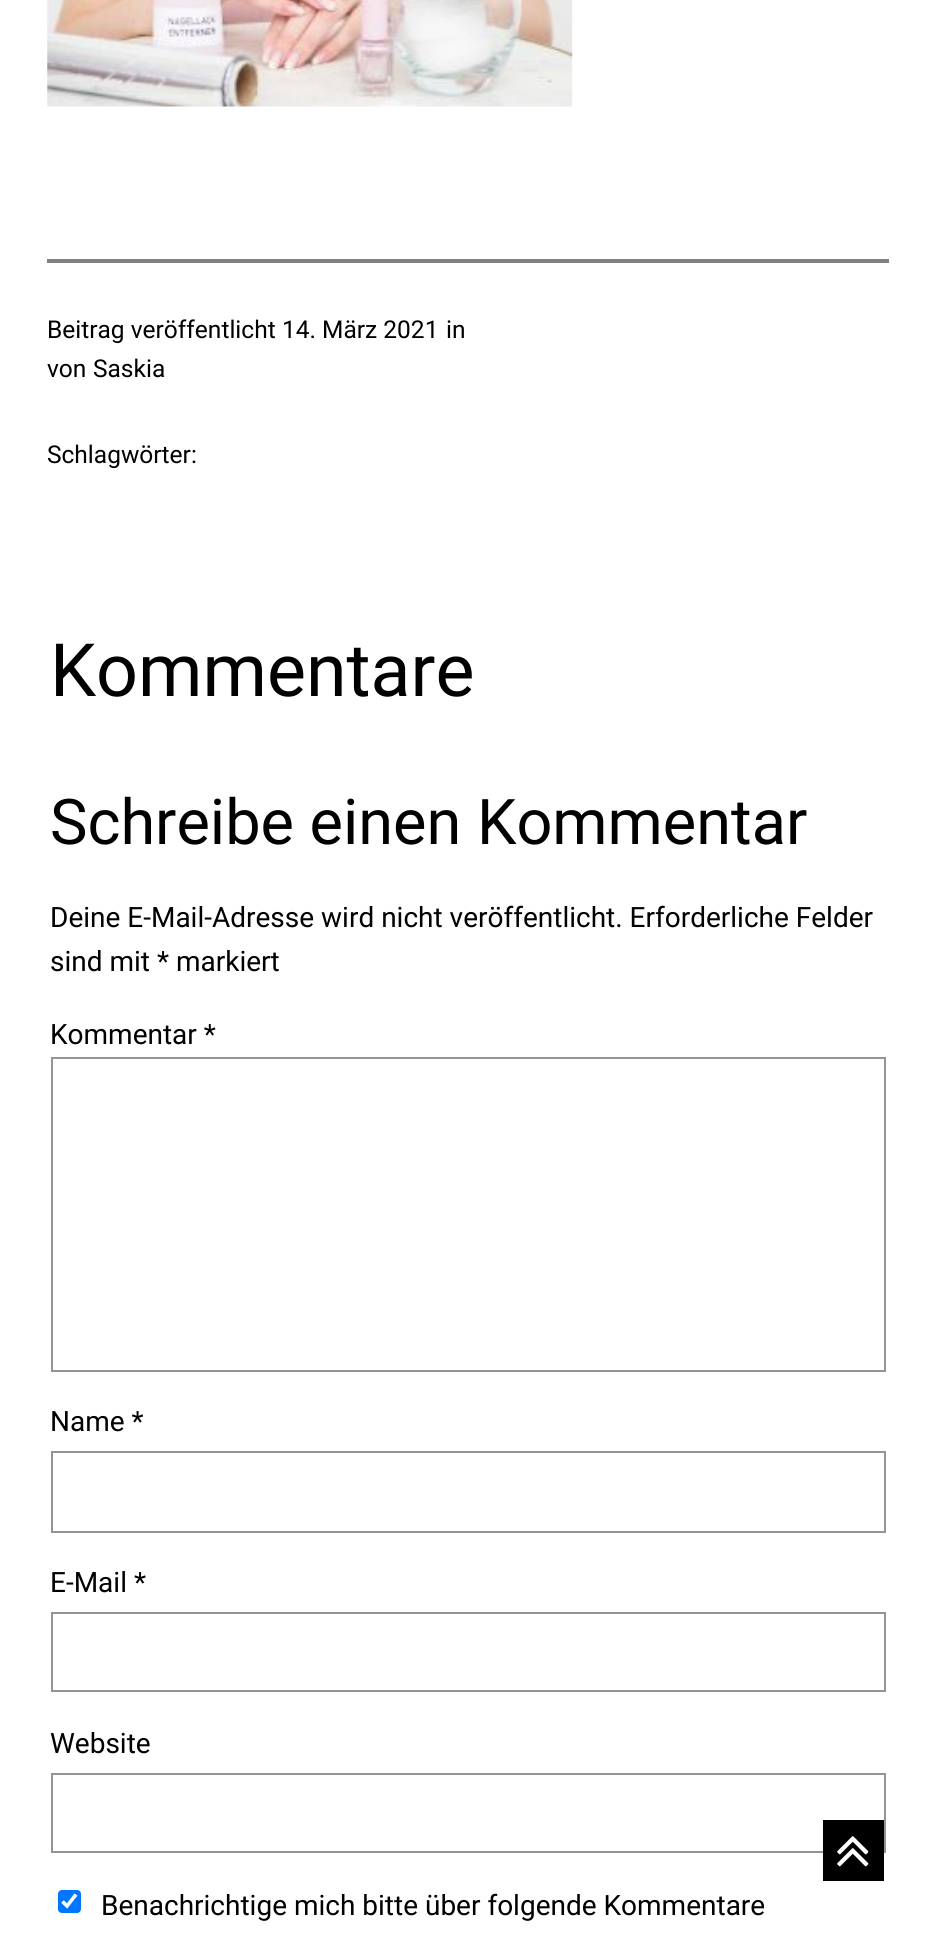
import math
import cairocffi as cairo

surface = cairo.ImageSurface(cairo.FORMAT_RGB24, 935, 1933)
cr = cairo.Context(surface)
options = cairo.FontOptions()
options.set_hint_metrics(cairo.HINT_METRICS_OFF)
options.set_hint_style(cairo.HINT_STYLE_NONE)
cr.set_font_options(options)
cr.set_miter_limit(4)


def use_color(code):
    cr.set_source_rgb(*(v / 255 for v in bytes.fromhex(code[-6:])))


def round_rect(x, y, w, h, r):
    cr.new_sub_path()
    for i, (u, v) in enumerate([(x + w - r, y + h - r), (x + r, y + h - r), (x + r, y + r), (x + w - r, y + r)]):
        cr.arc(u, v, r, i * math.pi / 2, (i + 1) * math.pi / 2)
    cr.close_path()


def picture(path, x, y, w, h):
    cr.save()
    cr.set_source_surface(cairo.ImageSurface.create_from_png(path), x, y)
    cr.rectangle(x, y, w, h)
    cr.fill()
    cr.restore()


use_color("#ffffff")
cr.paint()
picture("img1.png", 47, 0, 526, 107)
use_color("#808080")
cr.rectangle(47, 259, 842, 4)
cr.fill()
cr.select_font_face("Roboto")
cr.set_font_size(24.5)
use_color("#000000")
cr.move_to(47, 338)
cr.show_text("Beitrag veröffentlicht")
cr.move_to(282, 338)
cr.show_text("14. März 2021")
cr.move_to(446, 338)
cr.show_text("in")
cr.move_to(47, 377)
cr.show_text("von")
cr.move_to(93, 377)
cr.show_text("Saskia")
cr.move_to(47, 463)
cr.show_text("Schlagwörter:")
cr.set_font_size(73.5)
cr.move_to(50, 696)
cr.show_text("Kommentare")
cr.set_font_size(63)
cr.move_to(50, 844)
cr.show_text("Schreibe einen Kommentar")
cr.set_font_size(28)
cr.move_to(50, 927)
cr.show_text("Deine E-Mail-Adresse wird nicht veröffentlicht. Erforderliche Felder")
cr.move_to(50, 971)
cr.show_text("sind mit * markiert")
cr.move_to(50, 1044)
cr.show_text("Kommentar *")
cr.rectangle(52, 1058, 833, 313)
use_color("#949494")
cr.stroke()
use_color("#000000")
cr.move_to(50, 1431)
cr.show_text("Name *")
cr.rectangle(52, 1452, 833, 80)
use_color("#949494")
cr.stroke()
use_color("#000000")
cr.move_to(50, 1592)
cr.show_text("E-Mail *")
cr.rectangle(52, 1613, 833, 78)
use_color("#949494")
cr.stroke()
use_color("#000000")
cr.move_to(50, 1753)
cr.show_text("Website")
cr.rectangle(52, 1774, 833, 78)
use_color("#949494")
cr.stroke()
use_color("#0075ff")
round_rect(58, 1890, 23, 23, 4)
cr.fill()
cr.new_path()
cr.move_to(62.5, 1901.5)
cr.line_to(67, 1906)
cr.line_to(76, 1894.5)
use_color("#ffffff")
cr.set_line_width(3.6)
cr.stroke()
use_color("#000000")
cr.move_to(101, 1915)
cr.show_text("Benachrichtige mich bitte über folgende Kommentare")
cr.rectangle(823, 1820, 61, 61)
cr.fill()
picture("img2.png", 837, 1836, 32, 31)
surface.write_to_png("result.png")
